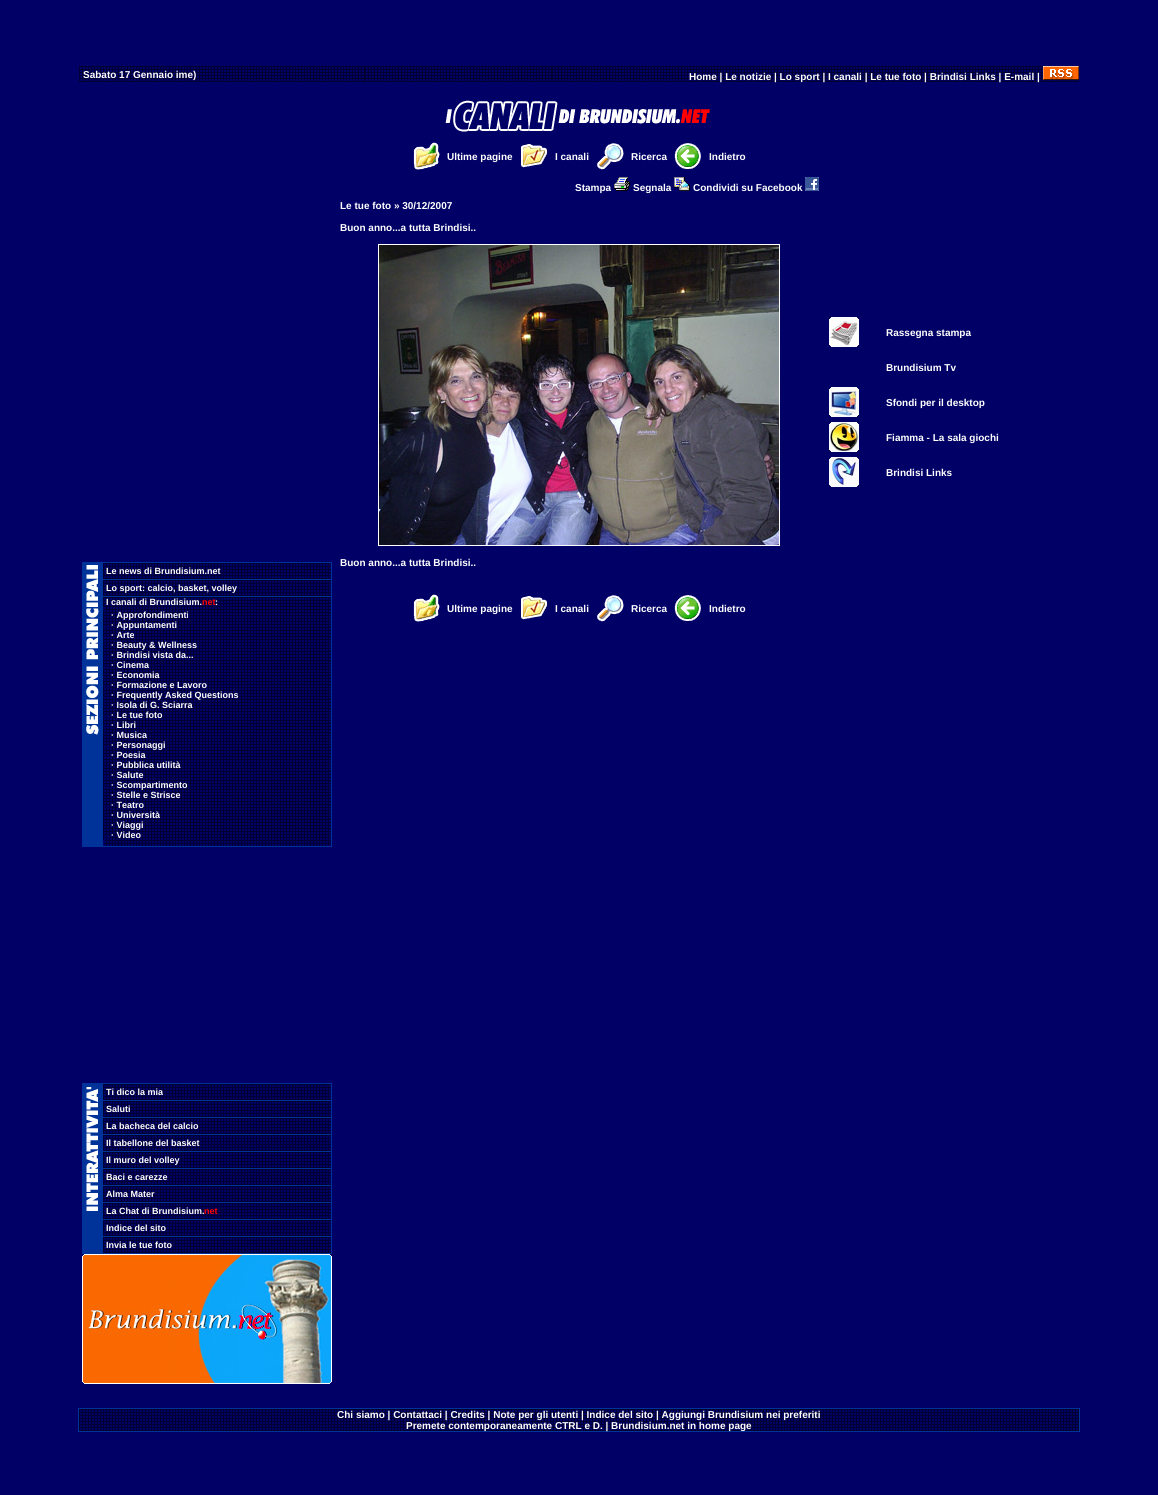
import math
import cairocffi as cairo

surface = cairo.ImageSurface(cairo.FORMAT_RGB24, 1158, 1495)
cr = cairo.Context(surface)
options = cairo.FontOptions()
options.set_hint_metrics(cairo.HINT_METRICS_OFF)
options.set_hint_style(cairo.HINT_STYLE_NONE)
cr.set_font_options(options)
cr.set_miter_limit(4)


def use_color(code):
    cr.set_source_rgb(*(v / 255 for v in bytes.fromhex(code[-6:])))


def picture(path, x, y, w, h):
    cr.save()
    cr.set_source_surface(cairo.ImageSurface.create_from_png(path), x, y)
    cr.rectangle(x, y, w, h)
    cr.fill()
    cr.restore()


use_color("#000066")
cr.paint()
picture("img1.png", 79, 66, 286, 16)
use_color("#000066")
cr.rectangle(79, 77, 1, 1)
cr.fill()
cr.select_font_face("Liberation Sans", cairo.FONT_SLANT_NORMAL, cairo.FONT_WEIGHT_BOLD)
cr.set_font_size(10)
use_color("#ffffff")
cr.move_to(83, 78)
cr.show_text("Sabato 17 Gennaio ime)")
picture("img2.png", 365, 66, 187, 16)
picture("img3.png", 552, 66, 527, 16)
cr.move_to(689, 80)
cr.show_text("Home | Le notizie | Lo sport | I canali | Le tue foto | Brindisi Links | E-mail |")
picture("img4.png", 1043, 66, 36, 14)
picture("img5.png", 445, 100, 265, 32)
picture("img6.png", 413, 142, 27, 28)
cr.move_to(447, 160)
cr.show_text("Ultime pagine")
picture("img7.png", 521, 144, 26, 24)
cr.move_to(555, 160)
cr.show_text("I canali")
picture("img8.png", 597, 143, 27, 27)
cr.move_to(631, 160)
cr.show_text("Ricerca")
picture("img9.png", 674, 143, 27, 26)
cr.move_to(709, 160)
cr.show_text("Indietro")
cr.move_to(575, 191)
cr.show_text("Stampa")
picture("img10.png", 614, 177, 16, 14)
cr.move_to(633, 191)
cr.show_text("Segnala")
picture("img11.png", 674, 177, 16, 14)
cr.move_to(693, 191)
cr.show_text("Condividi su Facebook")
picture("img12.png", 805, 177, 14, 14)
cr.move_to(340, 209)
cr.show_text("Le tue foto » 30/12/2007")
cr.move_to(340, 231)
cr.show_text("Buon anno...a tutta Brindisi..")
cr.rectangle(378, 244, 402, 302)
cr.fill()
picture("img13.png", 379, 245, 400, 300)
cr.move_to(340, 566)
cr.show_text("Buon anno...a tutta Brindisi..")
picture("img6.png", 413, 594, 27, 28)
cr.move_to(447, 612)
cr.show_text("Ultime pagine")
picture("img7.png", 521, 596, 26, 24)
cr.move_to(555, 612)
cr.show_text("I canali")
picture("img8.png", 597, 595, 27, 27)
cr.move_to(631, 612)
cr.show_text("Ricerca")
picture("img9.png", 674, 595, 27, 26)
cr.move_to(709, 612)
cr.show_text("Indietro")
picture("img14.png", 829, 317, 30, 30)
cr.move_to(886, 336)
cr.show_text("Rassegna stampa")
cr.move_to(886, 371)
cr.show_text("Brundisium Tv")
picture("img15.png", 829, 387, 30, 30)
cr.move_to(886, 406)
cr.show_text("Sfondi per il desktop")
picture("img16.png", 829, 422, 30, 30)
cr.move_to(886, 441)
cr.show_text("Fiamma - La sala giochi")
picture("img17.png", 829, 457, 30, 30)
cr.move_to(886, 476)
cr.show_text("Brindisi Links")
use_color("#003399")
cr.rectangle(82, 562, 250, 285)
cr.fill()
picture("img18.png", 86, 565, 13, 170)
picture("img19.png", 103, 563, 228, 16)
cr.set_font_size(9)
use_color("#ffffff")
cr.move_to(106, 574)
cr.show_text("Le news di Brundisium.net")
picture("img19.png", 103, 580, 228, 16)
cr.move_to(106, 591)
cr.show_text("Lo sport: calcio, basket, volley")
picture("img20.png", 103, 597, 228, 249)
cr.move_to(106, 605)
cr.show_text("I canali di Brundisium.")
use_color("#ff0000")
cr.move_to(202, 605)
cr.show_text("net")
use_color("#ffffff")
cr.move_to(215, 605)
cr.show_text(":")
use_color("#000066")
cr.rectangle(103, 607, 1, 3)
cr.fill()
use_color("#ffffff")
cr.move_to(111, 618)
cr.show_text("· Approfondimenti")
use_color("#000066")
cr.move_to(103, 628)
cr.show_text("...")
use_color("#ffffff")
cr.move_to(111, 628)
cr.show_text("· Appuntamenti")
use_color("#000066")
cr.move_to(103, 638)
cr.show_text("...")
use_color("#ffffff")
cr.move_to(111, 638)
cr.show_text("· Arte")
cr.move_to(111, 648)
cr.show_text("· Beauty & Wellness")
use_color("#000066")
cr.move_to(103, 658)
cr.show_text("...")
use_color("#ffffff")
cr.move_to(111, 658)
cr.show_text("· Brindisi vista da...")
use_color("#000066")
cr.move_to(103, 668)
cr.show_text("...")
use_color("#ffffff")
cr.move_to(111, 668)
cr.show_text("· Cinema")
cr.move_to(111, 678)
cr.show_text("· Economia")
use_color("#000066")
cr.move_to(103, 688)
cr.show_text("...")
use_color("#ffffff")
cr.move_to(111, 688)
cr.show_text("· Formazione e Lavoro")
use_color("#000066")
cr.move_to(103, 698)
cr.show_text("...")
use_color("#ffffff")
cr.move_to(111, 698)
cr.show_text("· Frequently Asked Questions")
cr.move_to(111, 708)
cr.show_text("· Isola di G. Sciarra")
use_color("#000066")
cr.move_to(103, 718)
cr.show_text("...")
use_color("#ffffff")
cr.move_to(111, 718)
cr.show_text("· Le tue foto")
use_color("#000066")
cr.move_to(103, 728)
cr.show_text("...")
use_color("#ffffff")
cr.move_to(111, 728)
cr.show_text("· Libri")
cr.move_to(111, 738)
cr.show_text("· Musica")
use_color("#000066")
cr.move_to(103, 748)
cr.show_text("...")
use_color("#ffffff")
cr.move_to(111, 748)
cr.show_text("· Personaggi")
use_color("#000066")
cr.move_to(103, 758)
cr.show_text("...")
use_color("#ffffff")
cr.move_to(111, 758)
cr.show_text("· Poesia")
cr.move_to(111, 768)
cr.show_text("· Pubblica utilità")
use_color("#000066")
cr.move_to(103, 778)
cr.show_text("...")
use_color("#ffffff")
cr.move_to(111, 778)
cr.show_text("· Salute")
use_color("#000066")
cr.move_to(103, 788)
cr.show_text("...")
use_color("#ffffff")
cr.move_to(111, 788)
cr.show_text("· Scompartimento")
cr.move_to(111, 798)
cr.show_text("· Stelle e Strisce")
use_color("#000066")
cr.move_to(103, 808)
cr.show_text("...")
use_color("#ffffff")
cr.move_to(111, 808)
cr.show_text("· Teatro")
use_color("#000066")
cr.move_to(103, 818)
cr.show_text("...")
use_color("#ffffff")
cr.move_to(111, 818)
cr.show_text("· Università")
cr.move_to(111, 828)
cr.show_text("· Viaggi")
use_color("#000066")
cr.move_to(103, 838)
cr.show_text("...")
cr.rectangle(103, 840, 1, 6)
cr.fill()
cr.rectangle(104, 840, 1, 1)
cr.fill()
use_color("#ffffff")
cr.move_to(111, 838)
cr.show_text("· Video")
use_color("#003399")
cr.rectangle(82, 1083, 250, 171)
cr.fill()
picture("img21.png", 86, 1087, 12, 124)
picture("img19.png", 103, 1084, 228, 16)
use_color("#ffffff")
cr.move_to(106, 1095)
cr.show_text("Ti dico la mia")
picture("img19.png", 103, 1101, 228, 16)
cr.move_to(106, 1112)
cr.show_text("Saluti")
picture("img19.png", 103, 1118, 228, 16)
cr.move_to(106, 1129)
cr.show_text("La bacheca del calcio")
picture("img19.png", 103, 1135, 228, 16)
cr.move_to(106, 1146)
cr.show_text("Il tabellone del basket")
picture("img19.png", 103, 1152, 228, 16)
cr.move_to(106, 1163)
cr.show_text("Il muro del volley")
picture("img19.png", 103, 1169, 228, 16)
cr.move_to(106, 1180)
cr.show_text("Baci e carezze")
picture("img19.png", 103, 1186, 228, 16)
cr.move_to(106, 1197)
cr.show_text("Alma Mater")
picture("img19.png", 103, 1203, 228, 16)
cr.move_to(106, 1214)
cr.show_text("La Chat di Brundisium.")
use_color("#ff0000")
cr.move_to(204, 1214)
cr.show_text("net")
picture("img19.png", 103, 1220, 228, 16)
use_color("#ffffff")
cr.move_to(106, 1231)
cr.show_text("Indice del sito")
picture("img19.png", 103, 1237, 228, 16)
cr.move_to(106, 1248)
cr.show_text("Invia le tue foto")
picture("img22.png", 82, 1254, 250, 130)
use_color("#003399")
cr.rectangle(78, 1408, 1002, 24)
cr.fill()
picture("img23.png", 79, 1409, 1000, 22)
cr.set_font_size(10)
use_color("#ffffff")
cr.move_to(337, 1418)
cr.show_text("Chi siamo | Contattaci | Credits | Note per gli utenti | Indice del sito | Aggiungi Brundisium nei preferiti")
cr.move_to(406, 1429)
cr.show_text("Premete contemporaneamente CTRL e D. | Brundisium.net in home page")
surface.write_to_png("result.png")
